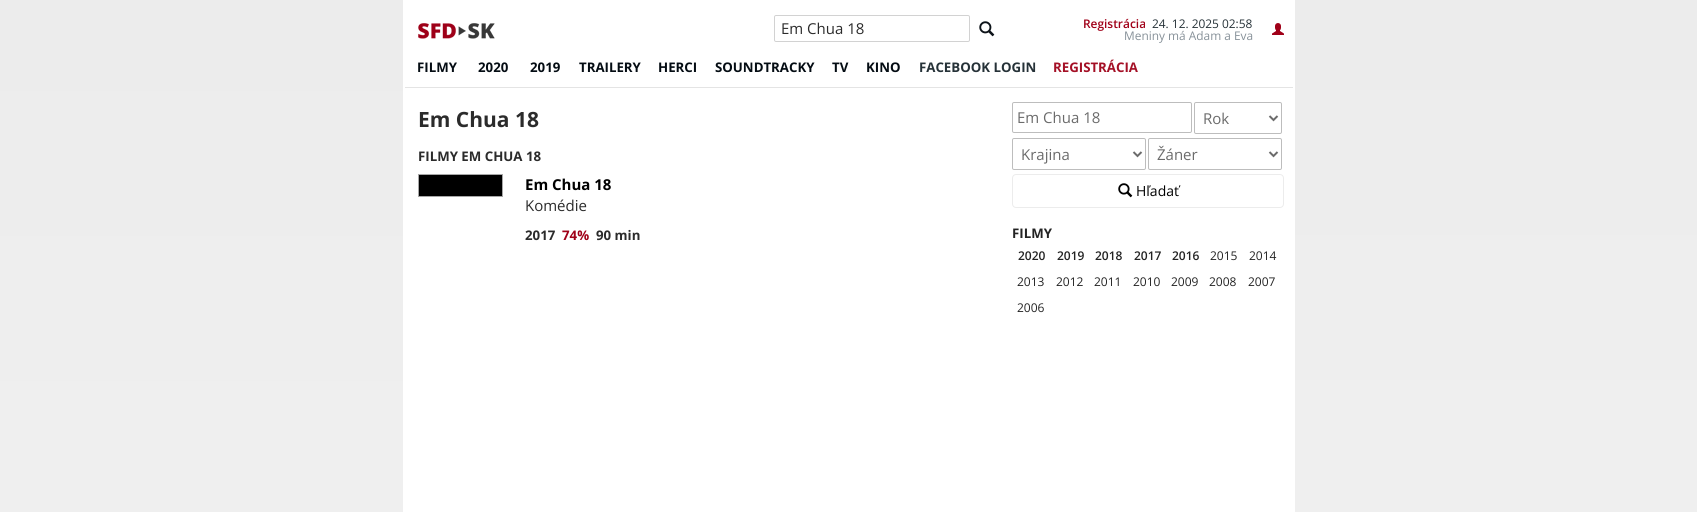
import math
import cairocffi as cairo

surface = cairo.ImageSurface(cairo.FORMAT_RGB24, 1697, 512)
cr = cairo.Context(surface)
options = cairo.FontOptions()
options.set_hint_metrics(cairo.HINT_METRICS_OFF)
options.set_hint_style(cairo.HINT_STYLE_NONE)
cr.set_font_options(options)
cr.set_miter_limit(4)


def use_color(code):
    cr.set_source_rgb(*(v / 255 for v in bytes.fromhex(code[-6:])))


def round_rect(x, y, w, h, r):
    cr.new_sub_path()
    for i, (u, v) in enumerate([(x + w - r, y + h - r), (x + r, y + h - r), (x + r, y + r), (x + w - r, y + r)]):
        cr.arc(u, v, r, i * math.pi / 2, (i + 1) * math.pi / 2)
    cr.close_path()


def picture(path, x, y, w, h):
    cr.save()
    cr.set_source_surface(cairo.ImageSurface.create_from_png(path), x, y)
    cr.rectangle(x, y, w, h)
    cr.fill()
    cr.restore()


use_color("#ffffff")
cr.paint()
gradient = cairo.LinearGradient(848, 0, 849, 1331)
gradient.add_color_stop_rgba(0, 0.925, 0.925, 0.925, 1)
gradient.add_color_stop_rgba(1, 0.961, 0.961, 0.961, 1)
cr.set_source(gradient)
cr.rectangle(0, 0, 1697, 512)
cr.fill()
use_color("#ffffff")
cr.rectangle(403, 0, 892, 512)
cr.fill()
picture("img1.png", 418, 23, 77, 16)
round_rect(774.5, 15.5, 195, 26, 1.5)
use_color("#d2d2d2")
cr.set_line_width(1)
cr.stroke()
cr.select_font_face("Open Sans")
cr.set_font_size(15)
use_color("#2b2b2b")
cr.move_to(781, 34)
cr.show_text("Em Chua 18")
picture("img2.png", 979, 21, 16, 16)
cr.select_font_face("Open Sans SemiBold")
cr.set_font_size(11.9)
use_color("#a00018")
cr.move_to(1083, 28)
cr.show_text("Registrácia")
cr.select_font_face("Open Sans")
use_color("#263238")
cr.move_to(1152, 28)
cr.show_text("24. 12. 2025 02:58")
use_color("#879199")
cr.move_to(1124, 40)
cr.show_text("Meniny má Adam a Eva")
picture("img3.png", 1272, 23, 12, 12)
use_color("#e4e4e4")
cr.rectangle(405, 87, 888, 1)
cr.fill()
cr.select_font_face("Open Sans", cairo.FONT_SLANT_NORMAL, cairo.FONT_WEIGHT_BOLD)
cr.set_font_size(13.25)
use_color("#040c13")
cr.move_to(417, 72)
cr.show_text("FILMY")
cr.move_to(478, 72)
cr.show_text("2020")
cr.move_to(530, 72)
cr.show_text("2019")
cr.move_to(579, 72)
cr.show_text("TRAILERY")
cr.move_to(658, 72)
cr.show_text("HERCI")
cr.move_to(715, 72)
cr.show_text("SOUNDTRACKY")
cr.move_to(832, 72)
cr.show_text("TV")
cr.move_to(866, 72)
cr.show_text("KINO")
use_color("#263238")
cr.move_to(919, 72)
cr.show_text("FACEBOOK LOGIN")
use_color("#a41026")
cr.move_to(1053, 72)
cr.show_text("REGISTRÁCIA")
cr.set_font_size(21)
use_color("#2b2b2b")
cr.move_to(418, 127)
cr.show_text("Em Chua 18")
cr.set_font_size(13.25)
cr.move_to(418, 161)
cr.show_text("FILMY EM CHUA 18")
use_color("#000000")
cr.rectangle(418.5, 174.5, 84, 22)
cr.fill_preserve()
use_color("#a7a7a7")
cr.stroke()
cr.set_font_size(15)
use_color("#000000")
cr.move_to(525, 190)
cr.show_text("Em Chua 18")
cr.select_font_face("Open Sans")
use_color("#2b2b2b")
cr.move_to(525, 211)
cr.show_text("Komédie")
cr.select_font_face("Open Sans", cairo.FONT_SLANT_NORMAL, cairo.FONT_WEIGHT_BOLD)
cr.set_font_size(13.25)
cr.move_to(525, 240)
cr.show_text("2017")
use_color("#a00018")
cr.move_to(562, 240)
cr.show_text("74%")
use_color("#2b2b2b")
cr.move_to(596, 240)
cr.show_text("90 min")
round_rect(1012.5, 102.5, 179, 30, 1.5)
use_color("#bdbdbd")
cr.stroke()
cr.select_font_face("Open Sans")
cr.set_font_size(15)
use_color("#6b6b6b")
cr.move_to(1017, 123)
cr.show_text("Em Chua 18")
round_rect(1194.5, 102.5, 87, 31, 1.5)
use_color("#bdbdbd")
cr.stroke()
cr.new_path()
cr.move_to(1269.5, 116)
cr.line_to(1273.5, 120)
cr.line_to(1277.5, 116)
use_color("#6b6b6b")
cr.set_line_width(2)
cr.stroke()
cr.move_to(1203, 124)
cr.show_text("Rok")
round_rect(1012.5, 138.5, 133, 31, 1.5)
use_color("#bdbdbd")
cr.set_line_width(1)
cr.stroke()
cr.new_path()
cr.move_to(1133.5, 152)
cr.line_to(1137.5, 156)
cr.line_to(1141.5, 152)
use_color("#6b6b6b")
cr.set_line_width(2)
cr.stroke()
cr.move_to(1021, 160)
cr.show_text("Krajina")
round_rect(1148.5, 138.5, 133, 31, 1.5)
use_color("#bdbdbd")
cr.set_line_width(1)
cr.stroke()
cr.new_path()
cr.move_to(1269.5, 152)
cr.line_to(1273.5, 156)
cr.line_to(1277.5, 152)
use_color("#6b6b6b")
cr.set_line_width(2)
cr.stroke()
cr.move_to(1157, 160)
cr.show_text("Žáner")
round_rect(1012.5, 174.5, 271, 33, 3.5)
use_color("#ececec")
cr.set_line_width(1)
cr.stroke()
picture("img4.png", 1118, 183, 15, 15)
cr.set_font_size(14)
use_color("#000000")
cr.move_to(1136, 196)
cr.show_text("Hľadať")
cr.select_font_face("Open Sans", cairo.FONT_SLANT_NORMAL, cairo.FONT_WEIGHT_BOLD)
cr.set_font_size(13.25)
use_color("#232323")
cr.move_to(1012, 238)
cr.show_text("FILMY")
cr.select_font_face("Open Sans SemiBold")
cr.set_font_size(12)
cr.move_to(1018, 260)
cr.show_text("2020")
cr.move_to(1057, 260)
cr.show_text("2019")
cr.move_to(1095, 260)
cr.show_text("2018")
cr.move_to(1134, 260)
cr.show_text("2017")
cr.move_to(1172, 260)
cr.show_text("2016")
cr.select_font_face("Open Sans")
cr.move_to(1210, 260)
cr.show_text("2015")
cr.move_to(1249, 260)
cr.show_text("2014")
cr.move_to(1017, 286)
cr.show_text("2013")
cr.move_to(1056, 286)
cr.show_text("2012")
cr.move_to(1094, 286)
cr.show_text("2011")
cr.move_to(1133, 286)
cr.show_text("2010")
cr.move_to(1171, 286)
cr.show_text("2009")
cr.move_to(1209, 286)
cr.show_text("2008")
cr.move_to(1248, 286)
cr.show_text("2007")
cr.move_to(1017, 312)
cr.show_text("2006")
surface.write_to_png("result.png")
